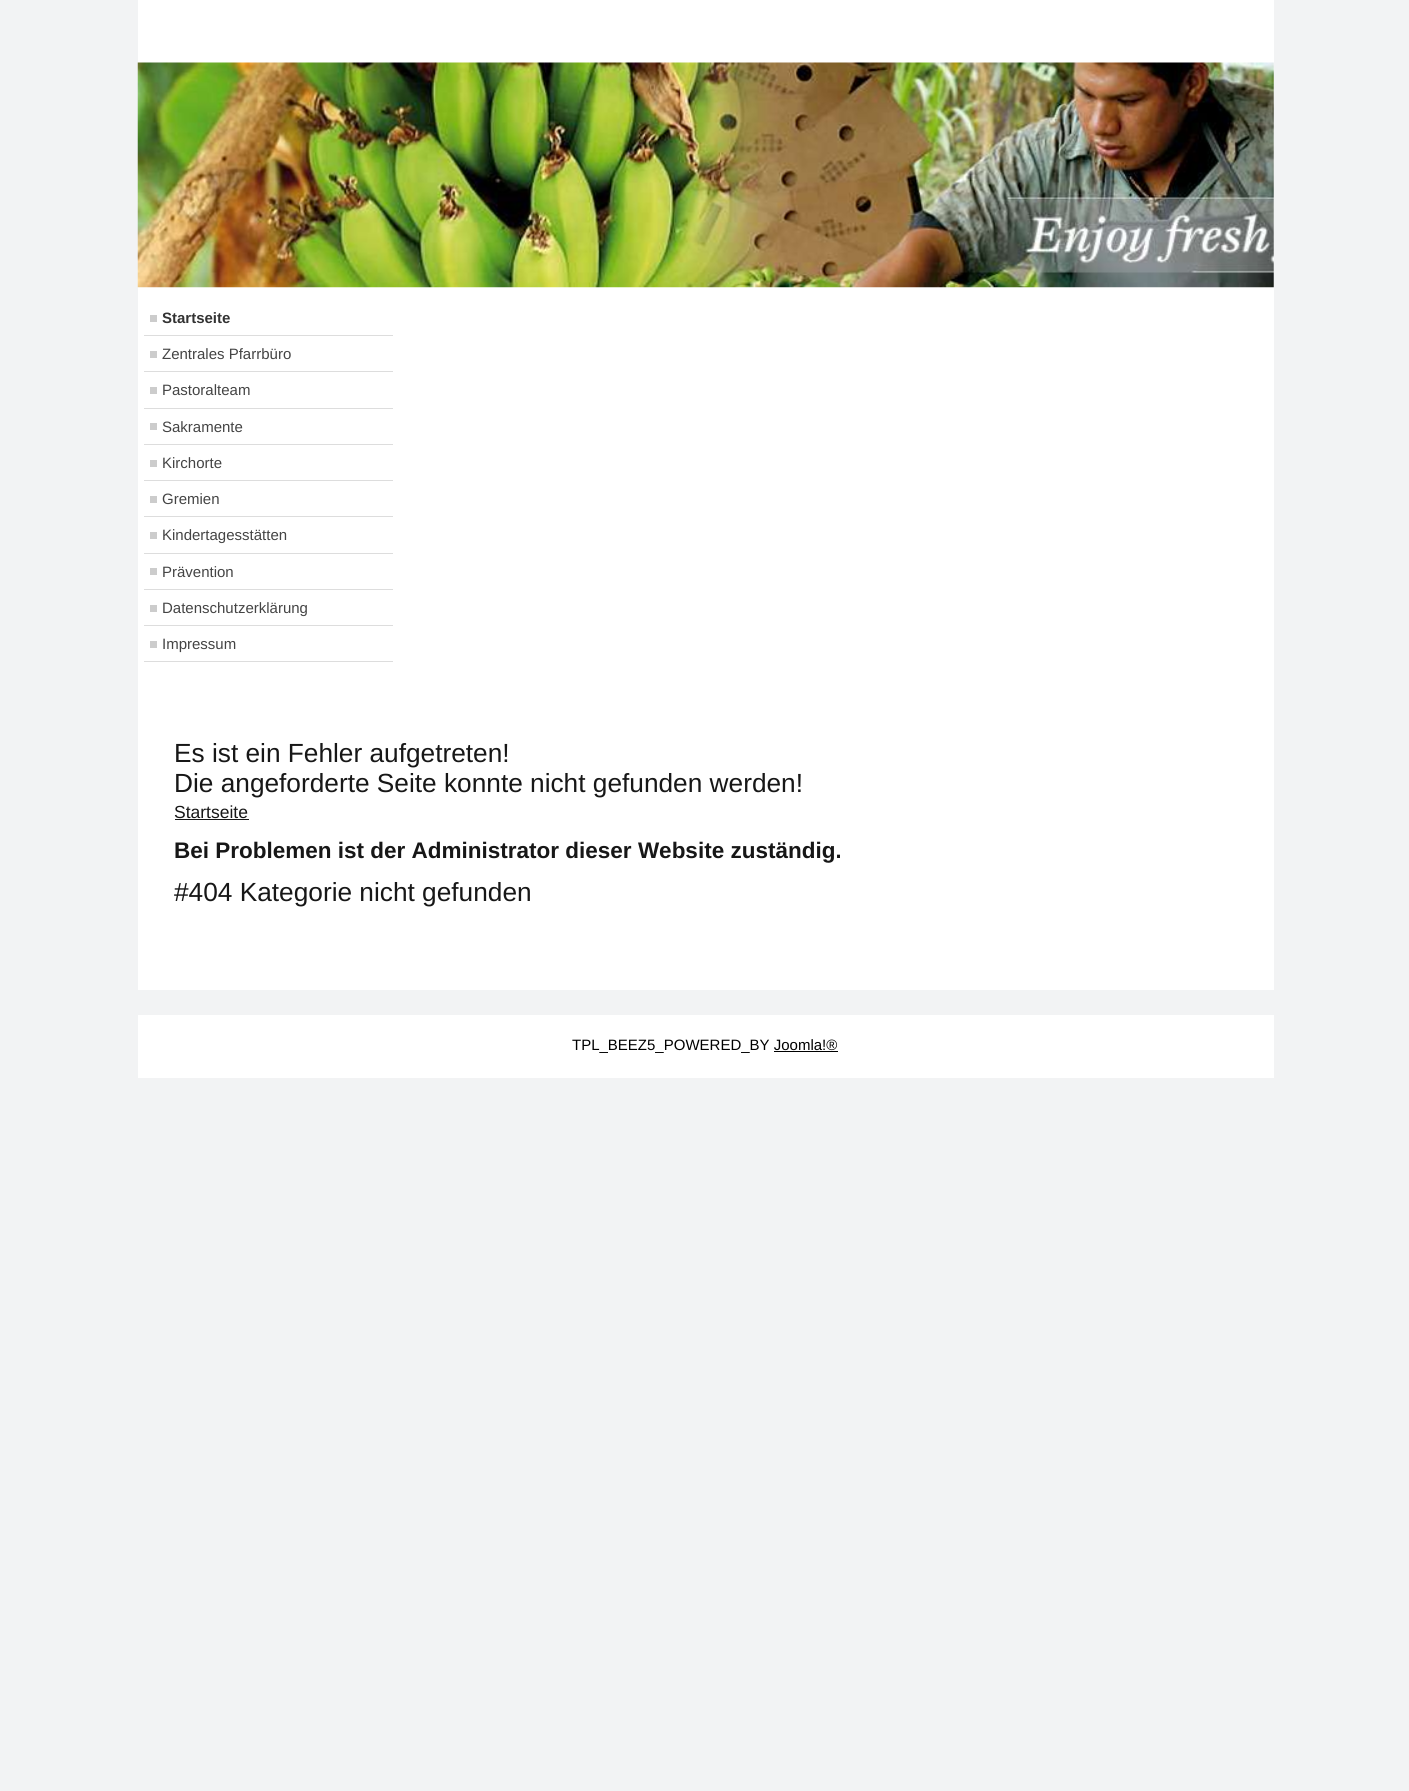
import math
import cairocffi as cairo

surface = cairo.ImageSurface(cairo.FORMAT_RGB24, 1409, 1791)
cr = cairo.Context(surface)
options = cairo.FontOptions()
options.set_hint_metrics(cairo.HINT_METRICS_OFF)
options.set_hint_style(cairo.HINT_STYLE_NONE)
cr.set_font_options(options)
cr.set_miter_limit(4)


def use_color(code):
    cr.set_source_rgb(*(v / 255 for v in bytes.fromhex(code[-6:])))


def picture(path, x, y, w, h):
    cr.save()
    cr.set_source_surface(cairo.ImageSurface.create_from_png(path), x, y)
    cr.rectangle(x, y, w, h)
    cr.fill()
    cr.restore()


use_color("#f2f3f4")
cr.paint()
use_color("#ffffff")
cr.rectangle(138, 0, 1136, 990)
cr.fill()
picture("img1.png", 137, 62, 1137, 226)
use_color("#dddddd")
cr.rectangle(144, 335, 249, 1)
cr.fill()
use_color("#cccccc")
cr.rectangle(150, 315, 7, 7)
cr.fill()
cr.select_font_face("Liberation Sans", cairo.FONT_SLANT_NORMAL, cairo.FONT_WEIGHT_BOLD)
cr.set_font_size(15)
use_color("#333333")
cr.move_to(162, 323)
cr.show_text("Startseite")
use_color("#dddddd")
cr.rectangle(144, 371, 249, 1)
cr.fill()
use_color("#cccccc")
cr.rectangle(150, 351, 7, 7)
cr.fill()
cr.select_font_face("Liberation Sans")
use_color("#444444")
cr.move_to(162, 359)
cr.show_text("Zentrales Pfarrbüro")
use_color("#dddddd")
cr.rectangle(144, 408, 249, 1)
cr.fill()
use_color("#cccccc")
cr.rectangle(150, 387, 7, 7)
cr.fill()
use_color("#444444")
cr.move_to(162, 395)
cr.show_text("Pastoralteam")
use_color("#dddddd")
cr.rectangle(144, 444, 249, 1)
cr.fill()
use_color("#cccccc")
cr.rectangle(150, 423, 7, 7)
cr.fill()
use_color("#444444")
cr.move_to(162, 432)
cr.show_text("Sakramente")
use_color("#dddddd")
cr.rectangle(144, 480, 249, 1)
cr.fill()
use_color("#cccccc")
cr.rectangle(150, 460, 7, 7)
cr.fill()
use_color("#444444")
cr.move_to(162, 468)
cr.show_text("Kirchorte")
use_color("#dddddd")
cr.rectangle(144, 516, 249, 1)
cr.fill()
use_color("#cccccc")
cr.rectangle(150, 496, 7, 7)
cr.fill()
use_color("#444444")
cr.move_to(162, 504)
cr.show_text("Gremien")
use_color("#dddddd")
cr.rectangle(144, 553, 249, 1)
cr.fill()
use_color("#cccccc")
cr.rectangle(150, 532, 7, 7)
cr.fill()
use_color("#444444")
cr.move_to(162, 540)
cr.show_text("Kindertagesstätten")
use_color("#dddddd")
cr.rectangle(144, 589, 249, 1)
cr.fill()
use_color("#cccccc")
cr.rectangle(150, 568, 7, 7)
cr.fill()
use_color("#444444")
cr.move_to(162, 577)
cr.show_text("Prävention")
use_color("#dddddd")
cr.rectangle(144, 625, 249, 1)
cr.fill()
use_color("#cccccc")
cr.rectangle(150, 605, 7, 7)
cr.fill()
use_color("#444444")
cr.move_to(162, 613)
cr.show_text("Datenschutzerklärung")
use_color("#dddddd")
cr.rectangle(144, 661, 249, 1)
cr.fill()
use_color("#cccccc")
cr.rectangle(150, 641, 7, 7)
cr.fill()
use_color("#444444")
cr.move_to(162, 649)
cr.show_text("Impressum")
cr.set_font_size(26.25)
use_color("#171717")
cr.move_to(174, 762)
cr.show_text("Es ist ein Fehler aufgetreten!")
cr.move_to(174, 792)
cr.show_text("Die angeforderte Seite konnte nicht gefunden werden!")
cr.set_font_size(17.5)
cr.move_to(174, 818)
cr.show_text("Startseite")
cr.rectangle(175, 819, 74, 1)
cr.fill()
cr.select_font_face("Liberation Sans", cairo.FONT_SLANT_NORMAL, cairo.FONT_WEIGHT_BOLD)
cr.set_font_size(22.5)
cr.move_to(174, 858)
cr.show_text("Bei Problemen ist der Administrator dieser Website zuständig.")
cr.select_font_face("Liberation Sans")
cr.set_font_size(26.25)
cr.move_to(174, 901)
cr.show_text("#404 Kategorie nicht gefunden")
use_color("#ffffff")
cr.rectangle(138, 1015, 1136, 63)
cr.fill()
cr.set_font_size(15)
use_color("#000000")
cr.move_to(572, 1050)
cr.show_text("TPL_BEEZ5_POWERED_BY Joomla!®")
cr.rectangle(774, 1051, 64, 1)
cr.fill()
surface.write_to_png("result.png")
